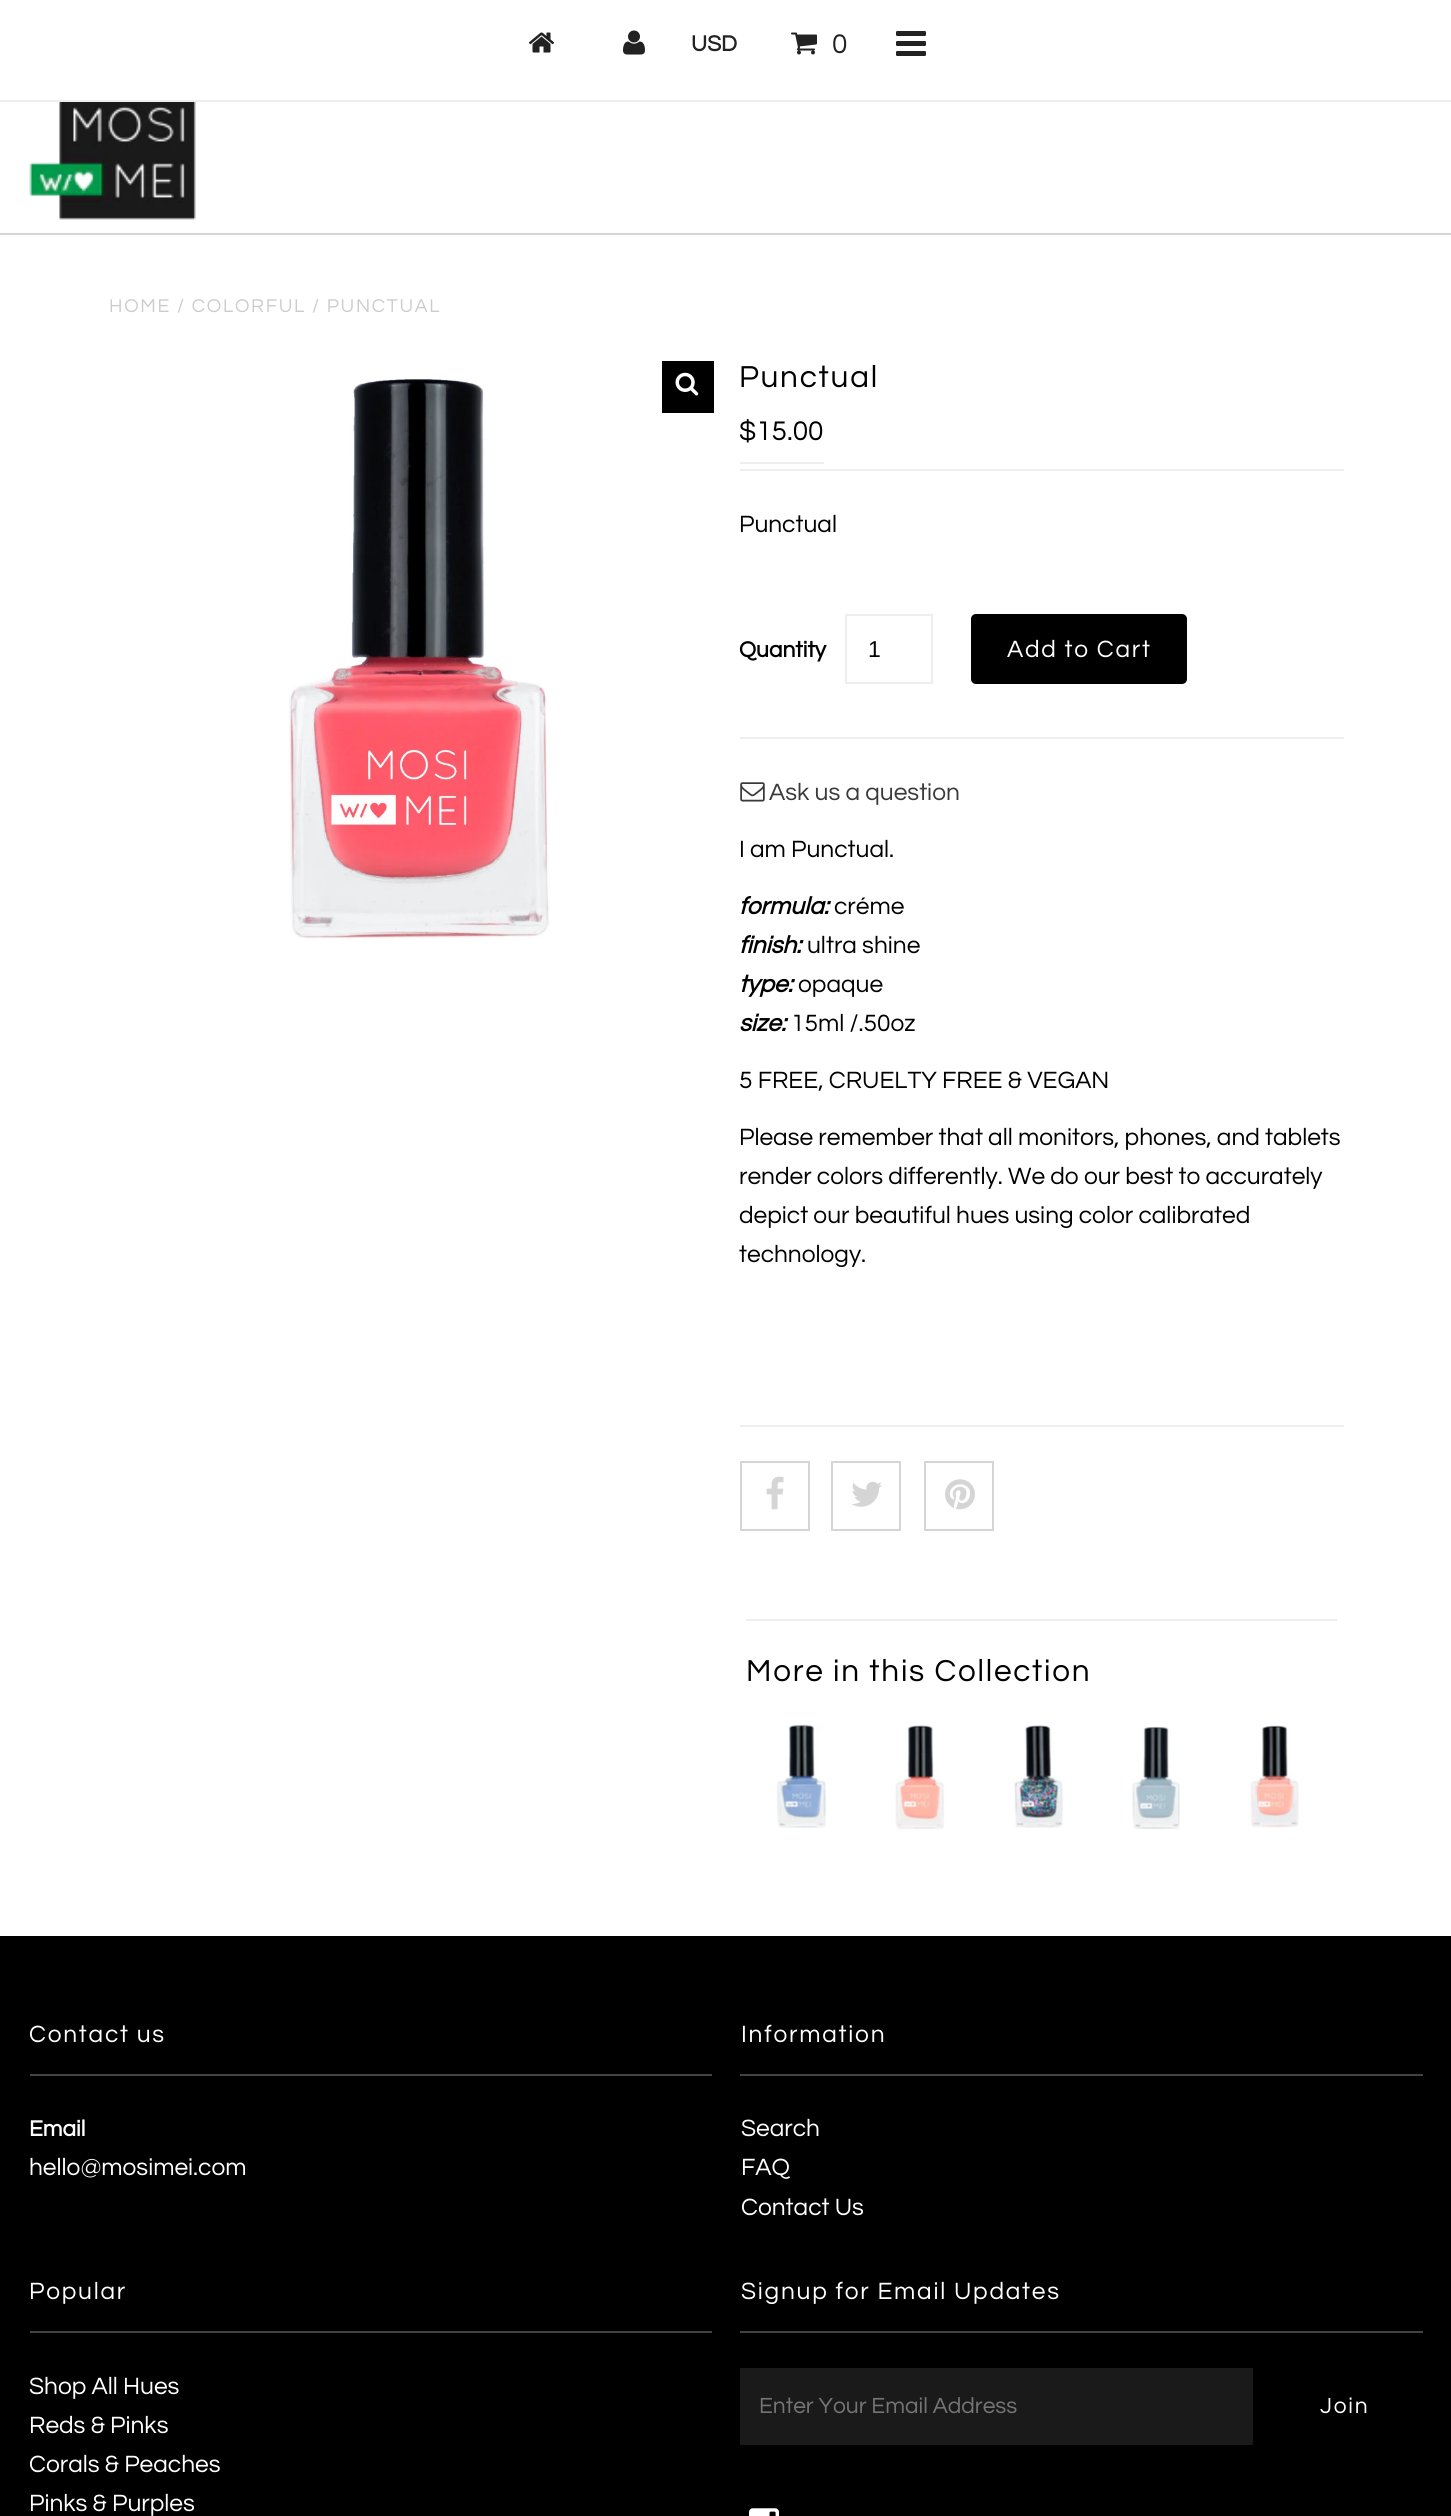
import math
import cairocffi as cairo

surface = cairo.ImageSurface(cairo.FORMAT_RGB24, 1451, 2516)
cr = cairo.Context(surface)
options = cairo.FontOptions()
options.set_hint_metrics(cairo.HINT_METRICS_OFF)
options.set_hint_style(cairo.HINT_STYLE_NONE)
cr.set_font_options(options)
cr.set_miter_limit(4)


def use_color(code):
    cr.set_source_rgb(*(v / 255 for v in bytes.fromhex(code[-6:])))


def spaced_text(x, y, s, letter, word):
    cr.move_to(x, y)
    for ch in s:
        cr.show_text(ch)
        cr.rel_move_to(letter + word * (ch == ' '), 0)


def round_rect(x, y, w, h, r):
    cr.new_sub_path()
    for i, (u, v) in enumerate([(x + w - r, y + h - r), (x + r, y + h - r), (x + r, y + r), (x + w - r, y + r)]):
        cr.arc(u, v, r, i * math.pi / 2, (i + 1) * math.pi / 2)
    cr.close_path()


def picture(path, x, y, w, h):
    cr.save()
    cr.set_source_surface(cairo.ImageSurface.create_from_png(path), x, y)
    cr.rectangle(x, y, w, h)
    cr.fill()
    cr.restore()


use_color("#ffffff")
cr.paint()
use_color("#eeeeee")
cr.rectangle(0, 100, 1451, 2)
cr.fill()
picture("img1.png", 528, 32, 27, 21)
picture("img2.png", 623, 30, 22, 25)
cr.select_font_face("Questrial", cairo.FONT_SLANT_NORMAL, cairo.FONT_WEIGHT_BOLD)
cr.set_font_size(22.75)
use_color("#222222")
cr.move_to(691, 51)
cr.show_text("USD")
picture("img3.png", 791, 32, 26, 23)
cr.select_font_face("Questrial")
cr.set_font_size(28)
cr.move_to(832, 53)
cr.show_text("0")
picture("img4.png", 896, 31, 30, 25)
use_color("#d5d5d5")
cr.rectangle(0, 233, 1451, 2)
cr.fill()
picture("img5.png", 29, 102, 167, 118)
cr.set_font_size(19.25)
use_color("#cccccc")
spaced_text(109, 312, "HOME / COLORFUL / PUNCTUAL", 1.75, 0)
picture("img6.png", 289, 379, 261, 560)
use_color("#000000")
cr.rectangle(662, 361, 52, 52)
cr.fill()
picture("img7.png", 675, 372, 24, 24)
cr.set_font_size(31.5)
spaced_text(739, 387, "Punctual", 1.75, 0)
use_color("#eeeeee")
cr.rectangle(740, 469, 604, 2)
cr.fill()
cr.set_font_size(28)
use_color("#000000")
cr.move_to(739, 440)
cr.show_text("$15.00")
use_color("#eeeeee")
cr.rectangle(740, 462, 84, 2)
cr.fill()
cr.set_font_size(24.5)
use_color("#000000")
cr.move_to(739, 532)
cr.show_text("Punctual")
use_color("#eeeeee")
cr.rectangle(740, 737, 604, 2)
cr.fill()
cr.select_font_face("Questrial", cairo.FONT_SLANT_NORMAL, cairo.FONT_WEIGHT_BOLD)
cr.set_font_size(22.75)
use_color("#000000")
cr.move_to(739, 657)
cr.show_text("Quantity")
cr.rectangle(846, 615, 86, 68)
use_color("#eeeeee")
cr.stroke()
cr.select_font_face("Liberation Sans")
cr.set_font_size(23)
use_color("#000000")
cr.move_to(868, 657)
cr.show_text("1")
round_rect(971, 614, 216, 70, 5)
cr.fill()
cr.select_font_face("Questrial")
cr.set_font_size(24.5)
use_color("#ffffff")
spaced_text(1007, 657, "Add to Cart", 1.75, 0)
picture("img8.png", 740, 782, 25, 20)
use_color("#3a3a3a")
cr.move_to(769, 800)
cr.show_text("Ask us a question")
use_color("#000000")
cr.move_to(739, 857)
cr.show_text("I am Punctual.")
cr.select_font_face("Questrial", cairo.FONT_SLANT_ITALIC, cairo.FONT_WEIGHT_BOLD)
cr.move_to(739, 914)
cr.show_text("formula:")
cr.select_font_face("Questrial")
cr.move_to(834, 914)
cr.show_text("créme")
cr.select_font_face("Questrial", cairo.FONT_SLANT_ITALIC, cairo.FONT_WEIGHT_BOLD)
cr.move_to(739, 953)
cr.show_text("finish:")
cr.select_font_face("Questrial")
cr.move_to(807, 953)
cr.show_text("ultra shine")
cr.select_font_face("Questrial", cairo.FONT_SLANT_ITALIC, cairo.FONT_WEIGHT_BOLD)
cr.move_to(739, 992)
cr.show_text("type:")
cr.select_font_face("Questrial")
cr.move_to(798, 992)
cr.show_text("opaque")
cr.select_font_face("Questrial", cairo.FONT_SLANT_ITALIC, cairo.FONT_WEIGHT_BOLD)
cr.move_to(739, 1031)
cr.show_text("size:")
cr.select_font_face("Questrial")
cr.move_to(791, 1031)
cr.show_text("15ml /.50oz")
cr.move_to(739, 1088)
cr.show_text("5 FREE, CRUELTY FREE & VEGAN")
cr.move_to(739, 1145)
cr.show_text("Please remember that all monitors, phones, and tablets")
cr.move_to(739, 1184)
cr.show_text("render colors differently. We do our best to accurately")
cr.move_to(739, 1223)
cr.show_text("depict our beautiful hues using color calibrated")
cr.move_to(739, 1262)
cr.show_text("technology.")
use_color("#eeeeee")
cr.rectangle(740, 1425, 604, 2)
cr.fill()
cr.rectangle(741, 1462, 68, 68)
use_color("#d5d5d5")
cr.stroke()
picture("img9.png", 766, 1476, 18, 34)
cr.rectangle(832, 1462, 68, 68)
cr.stroke()
picture("img10.png", 852, 1481, 30, 26)
cr.rectangle(925, 1462, 68, 68)
cr.stroke()
picture("img11.png", 945, 1479, 30, 31)
use_color("#eeeeee")
cr.rectangle(746, 1619, 591, 2)
cr.fill()
cr.set_font_size(31.5)
use_color("#000000")
spaced_text(746, 1681, "More in this Collection", 1.75, 0)
picture("img12.png", 776, 1724, 50, 104)
picture("img13.png", 895, 1725, 50, 105)
picture("img14.png", 1014, 1725, 50, 103)
picture("img15.png", 1132, 1726, 48, 104)
picture("img16.png", 1250, 1725, 49, 103)
cr.rectangle(0, 1936, 1451, 580)
cr.fill()
use_color("#424242")
cr.rectangle(30, 2074, 682, 2)
cr.fill()
cr.set_font_size(24.5)
use_color("#ffffff")
spaced_text(29, 2042, "Contact us", 1.75, 0)
cr.select_font_face("Questrial", cairo.FONT_SLANT_NORMAL, cairo.FONT_WEIGHT_BOLD)
cr.set_font_size(22.75)
cr.move_to(29, 2136)
cr.show_text("Email")
cr.select_font_face("Questrial")
cr.set_font_size(24.5)
cr.move_to(29, 2175)
cr.show_text("hello@mosimei.com")
use_color("#424242")
cr.rectangle(740, 2074, 683, 2)
cr.fill()
use_color("#ffffff")
spaced_text(741, 2042, "Information", 1.75, 0)
cr.move_to(741, 2136)
cr.show_text("Search")
cr.move_to(741, 2175)
cr.show_text("FAQ")
cr.move_to(741, 2215)
cr.show_text("Contact Us")
use_color("#424242")
cr.rectangle(30, 2331, 682, 2)
cr.fill()
use_color("#ffffff")
spaced_text(29, 2299, "Popular", 1.75, 0)
cr.move_to(29, 2394)
cr.show_text("Shop All Hues")
cr.move_to(29, 2433)
cr.show_text("Reds & Pinks")
cr.move_to(29, 2472)
cr.show_text("Corals & Peaches")
cr.move_to(29, 2511)
cr.show_text("Pinks & Purples")
use_color("#424242")
cr.rectangle(740, 2331, 683, 2)
cr.fill()
use_color("#ffffff")
spaced_text(741, 2299, "Signup for Email Updates", 1.75, 0)
use_color("#1a1a1a")
cr.rectangle(740, 2368, 513, 77)
cr.fill()
cr.set_font_size(22.75)
use_color("#757575")
cr.move_to(759, 2413)
cr.show_text("Enter Your Email Address")
use_color("#ffffff")
spaced_text(1320, 2413, "Join", 1.75, 0)
picture("img17.png", 749, 2508, 30, 8)
surface.write_to_png("result.png")
